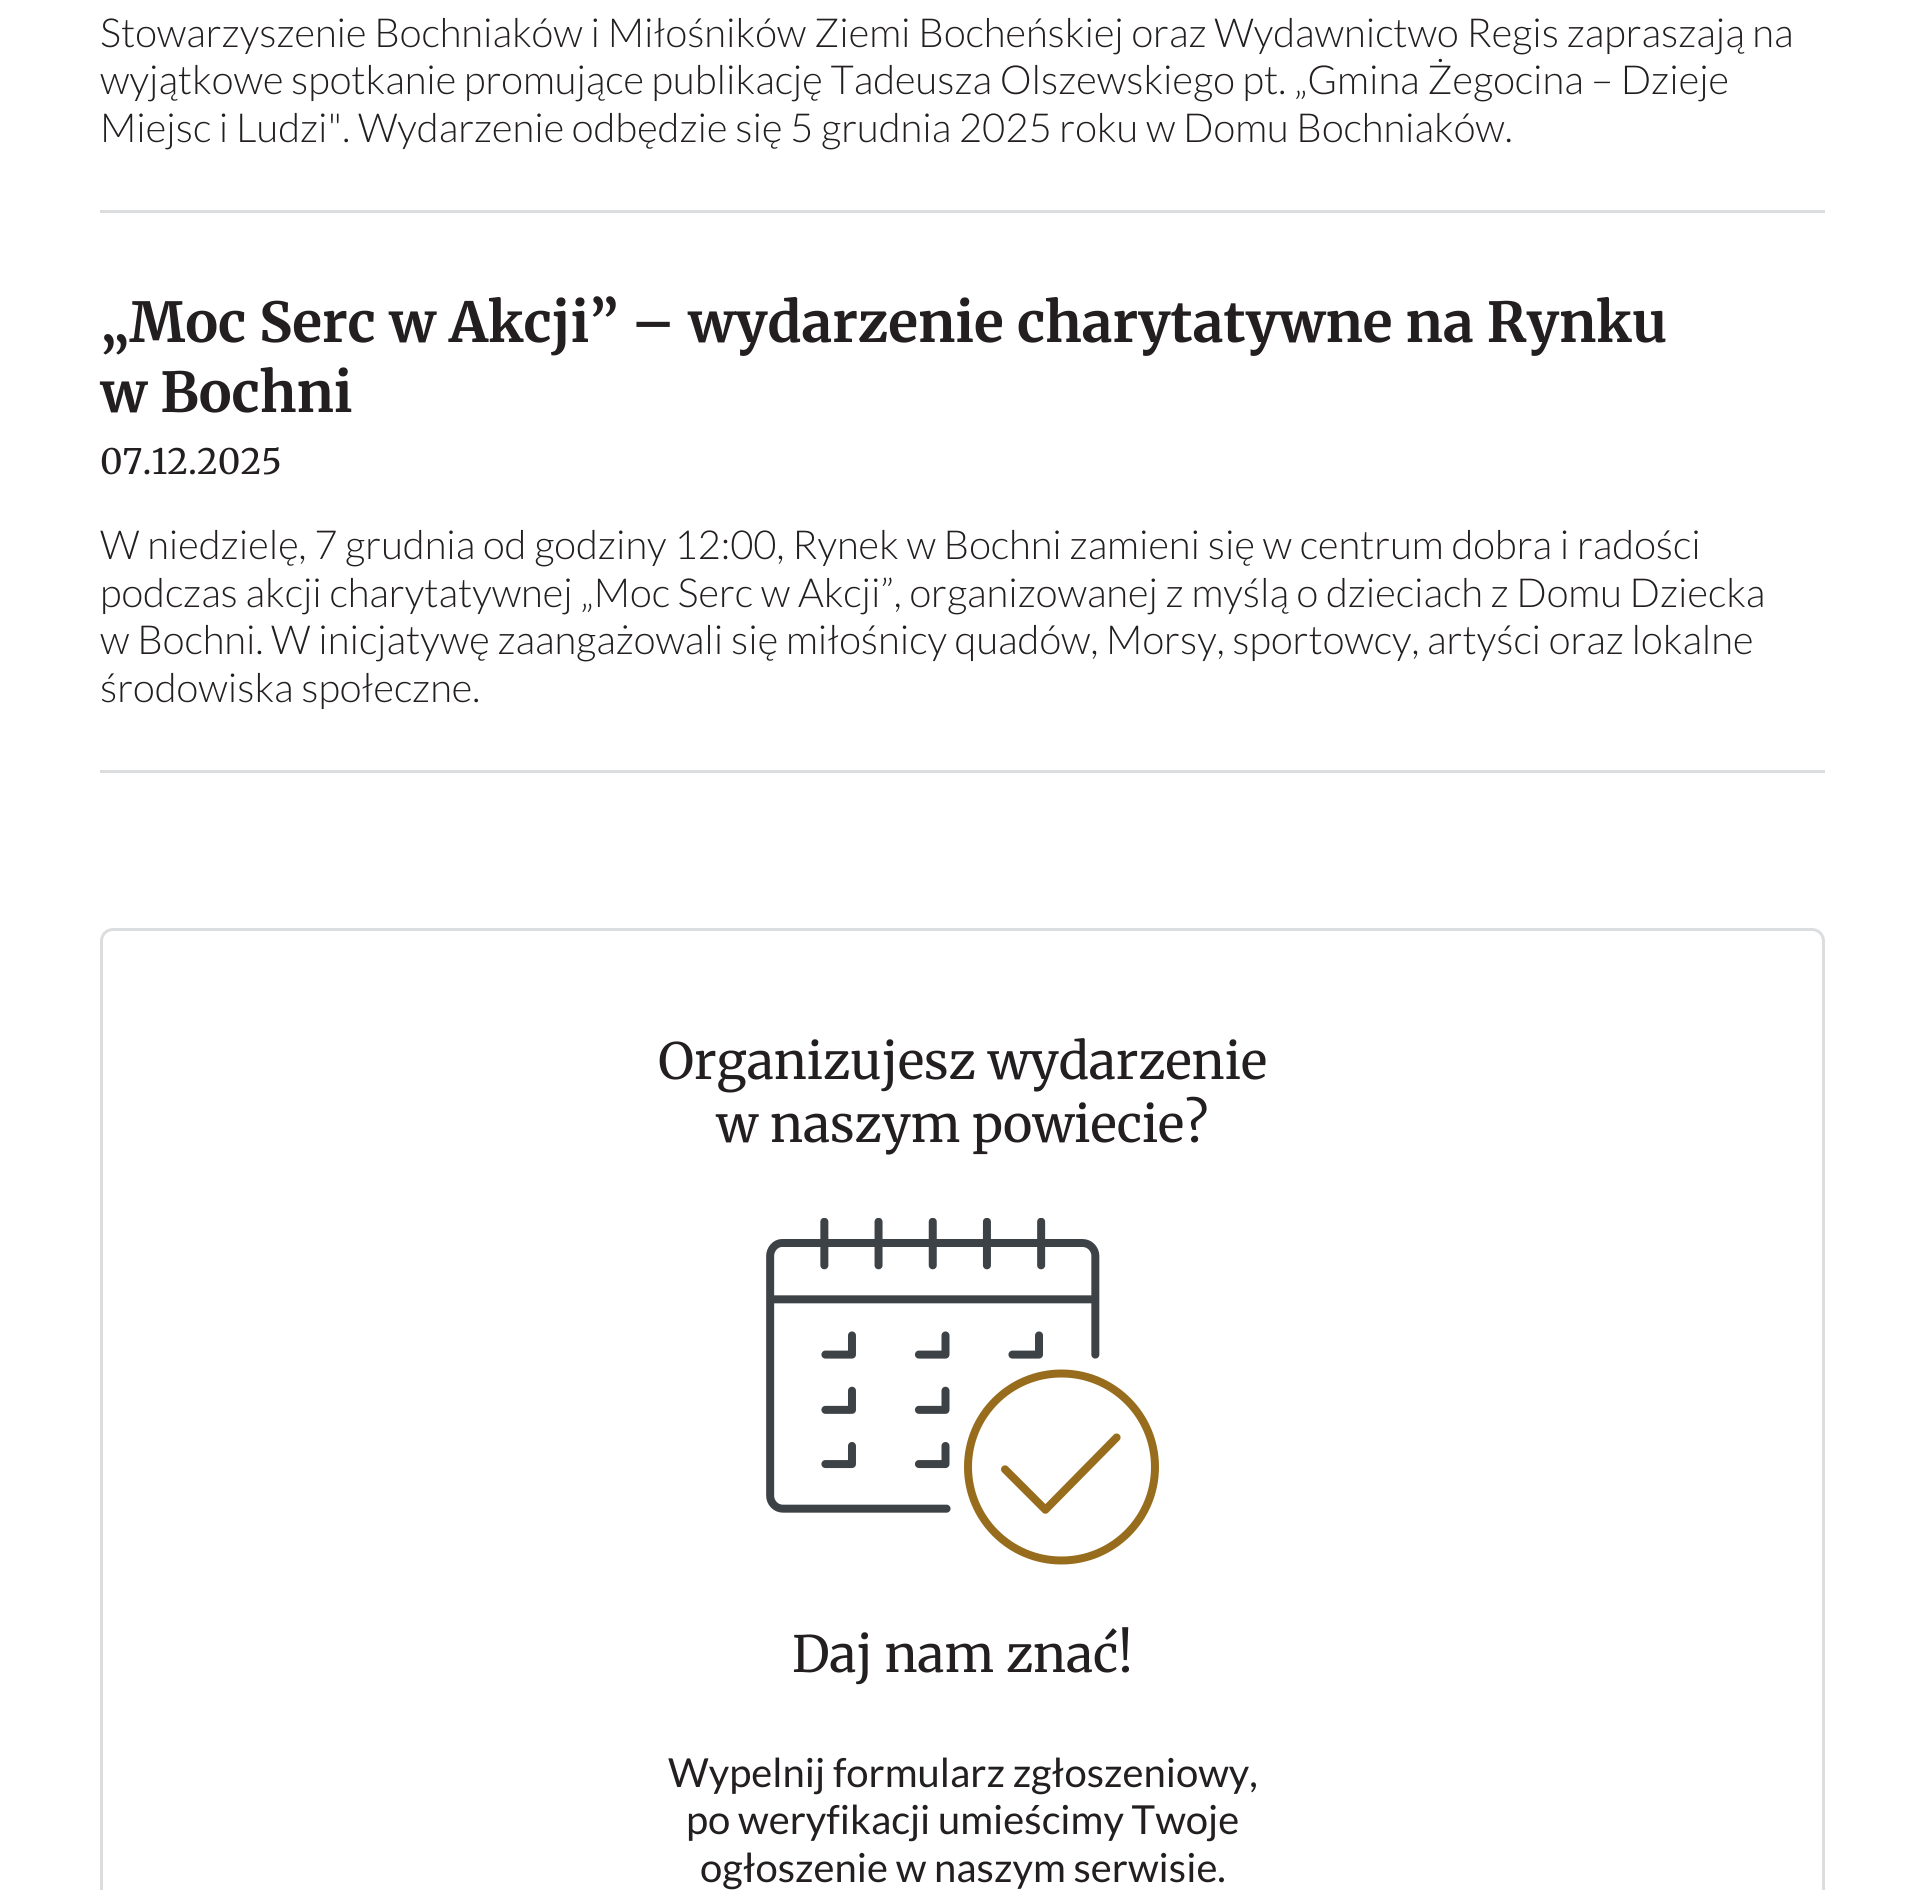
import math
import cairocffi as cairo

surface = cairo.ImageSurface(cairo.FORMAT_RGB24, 1923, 1890)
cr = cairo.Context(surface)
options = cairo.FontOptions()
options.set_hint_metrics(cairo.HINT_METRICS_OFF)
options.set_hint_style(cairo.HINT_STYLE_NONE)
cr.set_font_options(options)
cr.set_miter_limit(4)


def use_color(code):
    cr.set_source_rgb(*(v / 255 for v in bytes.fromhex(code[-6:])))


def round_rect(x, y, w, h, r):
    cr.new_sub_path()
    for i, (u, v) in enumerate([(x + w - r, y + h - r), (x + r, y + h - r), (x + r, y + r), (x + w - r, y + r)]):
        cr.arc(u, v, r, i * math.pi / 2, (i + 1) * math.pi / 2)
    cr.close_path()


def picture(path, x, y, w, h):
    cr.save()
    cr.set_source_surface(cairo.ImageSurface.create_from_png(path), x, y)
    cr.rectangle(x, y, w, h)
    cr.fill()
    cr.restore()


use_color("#ffffff")
cr.paint()
use_color("#dcdddf")
cr.rectangle(100, 770, 1725, 3)
cr.fill()
cr.select_font_face("Lato Light")
cr.set_font_size(40)
use_color("#231f20")
cr.move_to(100, 47)
cr.show_text("Stowarzyszenie Bochniaków i Miłośników Ziemi Bocheńskiej oraz Wydawnictwo Regis zapraszają na")
cr.move_to(100, 94)
cr.show_text("wyjątkowe spotkanie promujące publikację Tadeusza Olszewskiego pt. „Gmina Żegocina – Dzieje")
cr.move_to(100, 142)
cr.show_text("Miejsc i Ludzi\". Wydarzenie odbędzie się 5 grudnia 2025 roku w Domu Bochniaków.")
use_color("#dcdddf")
cr.rectangle(100, 210, 1725, 3)
cr.fill()
cr.select_font_face("Merriweather", cairo.FONT_SLANT_NORMAL, cairo.FONT_WEIGHT_BOLD)
cr.set_font_size(55)
use_color("#231f20")
cr.move_to(100, 342)
cr.show_text("„Moc Serc w Akcji” – wydarzenie charytatywne na Rynku")
cr.move_to(100, 412)
cr.show_text("w Bochni")
cr.select_font_face("Merriweather")
cr.set_font_size(35)
cr.move_to(100, 474)
cr.show_text("07.12.2025")
cr.select_font_face("Lato Light")
cr.set_font_size(40)
cr.move_to(100, 559)
cr.show_text("W niedzielę, 7 grudnia od godziny 12:00, Rynek w Bochni zamieni się w centrum dobra i radości")
cr.move_to(100, 607)
cr.show_text("podczas akcji charytatywnej „Moc Serc w Akcji”, organizowanej z myślą o dzieciach z Domu Dziecka")
cr.move_to(100, 654)
cr.show_text("w Bochni. W inicjatywę zaangażowali się miłośnicy quadów, Morsy, sportowcy, artyści oraz lokalne")
cr.move_to(100, 702)
cr.show_text("środowiska społeczne.")
round_rect(101.5, 929.5, 1722, 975, 11.5)
use_color("#dcdddf")
cr.set_line_width(3)
cr.stroke()
cr.select_font_face("Merriweather")
cr.set_font_size(50)
use_color("#231f20")
cr.move_to(658, 1079)
cr.show_text("Organizujesz wydarzenie")
cr.move_to(716, 1142)
cr.show_text("w naszym powiecie?")
picture("img1.png", 766, 1218, 393, 347)
cr.move_to(792, 1672)
cr.show_text("Daj nam znać!")
cr.select_font_face("Lato")
cr.set_font_size(40)
cr.move_to(668, 1787)
cr.show_text("Wypelnij formularz zgłoszeniowy,")
cr.move_to(686, 1834)
cr.show_text("po weryfikacji umieścimy Twoje")
cr.move_to(700, 1882)
cr.show_text("ogłoszenie w naszym serwisie.")
surface.write_to_png("result.png")
